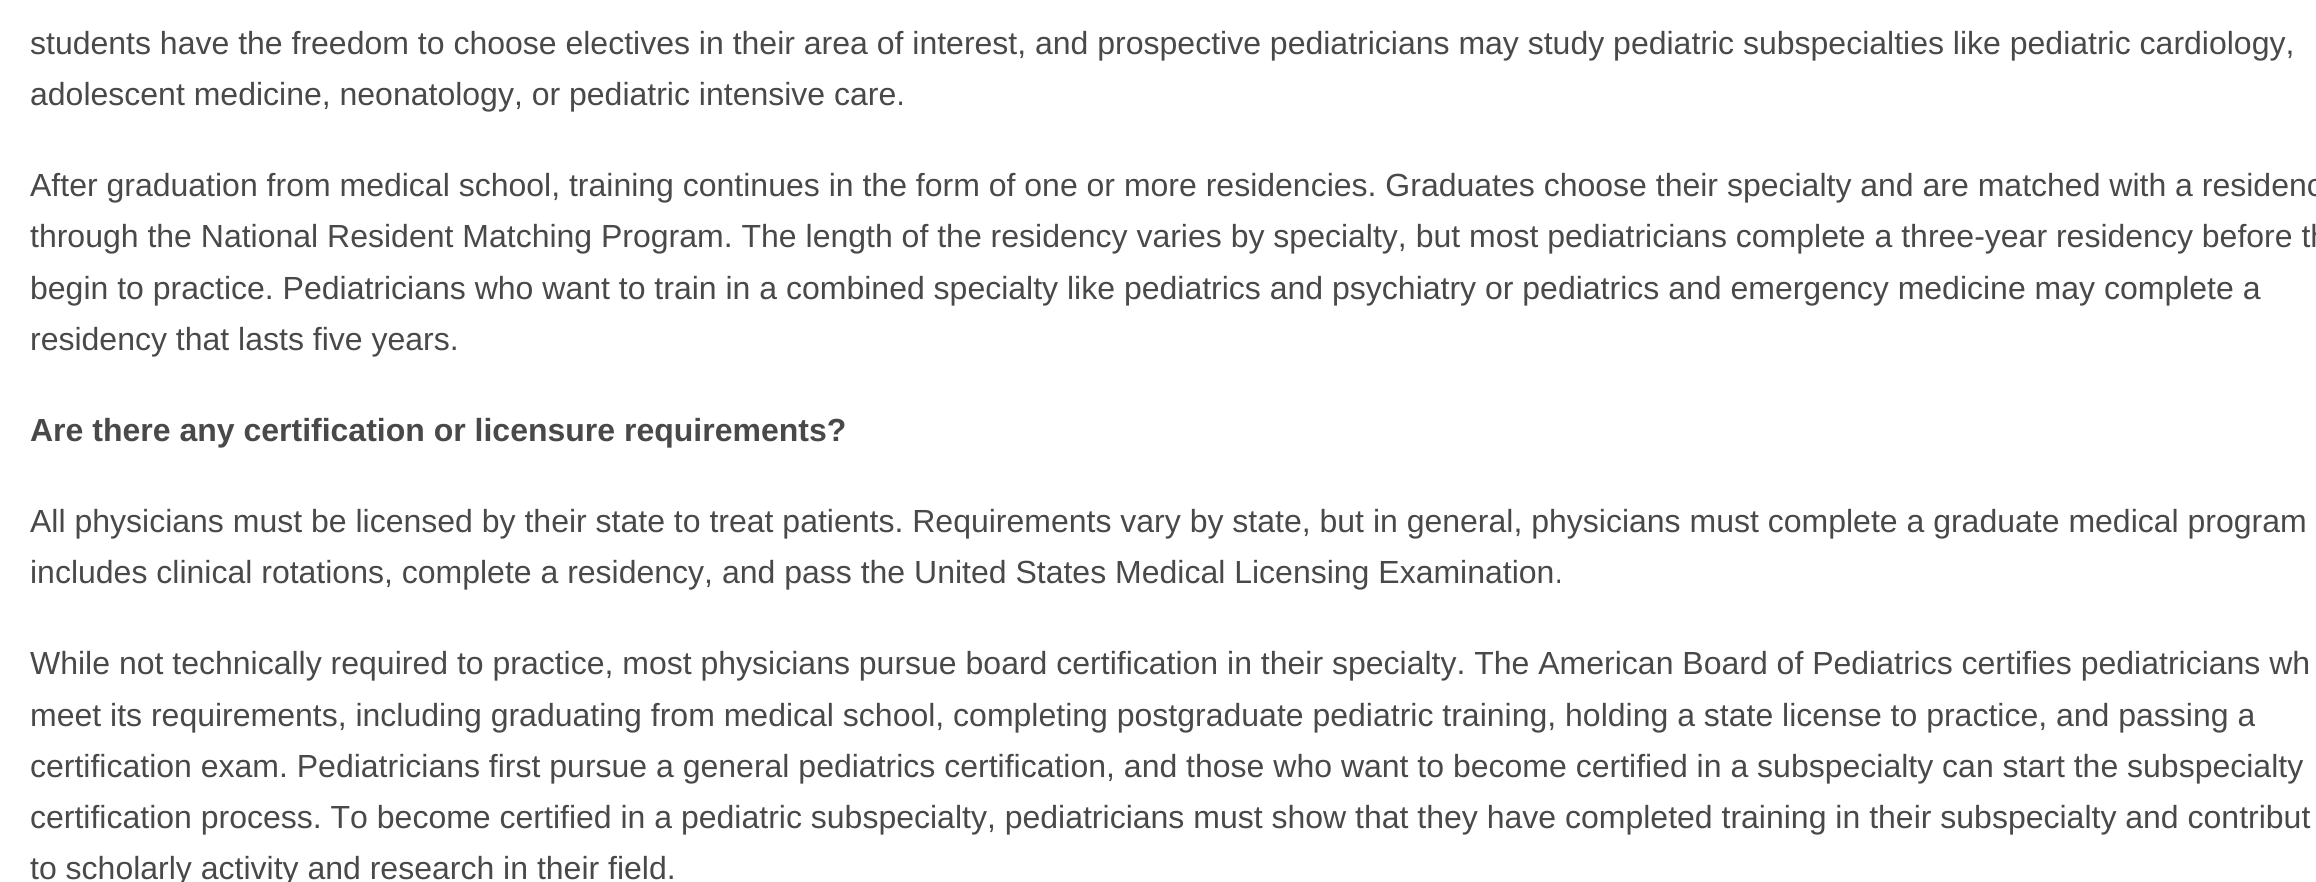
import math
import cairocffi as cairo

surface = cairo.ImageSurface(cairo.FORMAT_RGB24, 2316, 882)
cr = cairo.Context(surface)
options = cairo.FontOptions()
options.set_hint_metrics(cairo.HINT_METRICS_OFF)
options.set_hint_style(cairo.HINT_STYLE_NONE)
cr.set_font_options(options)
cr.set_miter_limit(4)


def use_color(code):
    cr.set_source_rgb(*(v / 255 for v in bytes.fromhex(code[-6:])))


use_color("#ffffff")
cr.paint()
cr.select_font_face("Liberation Sans")
cr.set_font_size(32)
use_color("#4a4949")
cr.move_to(30, 54)
cr.show_text("students have the freedom to choose electives in their area of interest, and prospective pediatricians may study pediatric subspecialties like pediatric cardiology,")
cr.move_to(30, 105)
cr.show_text("adolescent medicine, neonatology, or pediatric intensive care.")
cr.move_to(30, 196)
cr.show_text("After graduation from medical school, training continues in the form of one or more residencies. Graduates choose their specialty and are matched with a residenc")
cr.move_to(30, 247)
cr.show_text("through the National Resident Matching Program. The length of the residency varies by specialty, but most pediatricians complete a three-year residency before th")
cr.move_to(30, 299)
cr.show_text("begin to practice. Pediatricians who want to train in a combined specialty like pediatrics and psychiatry or pediatrics and emergency medicine may complete a")
cr.move_to(30, 350)
cr.show_text("residency that lasts five years.")
cr.select_font_face("Liberation Sans", cairo.FONT_SLANT_NORMAL, cairo.FONT_WEIGHT_BOLD)
cr.move_to(30, 441)
cr.show_text("Are there any certification or licensure requirements?")
cr.select_font_face("Liberation Sans")
cr.move_to(30, 532)
cr.show_text("All physicians must be licensed by their state to treat patients. Requirements vary by state, but in general, physicians must complete a graduate medical program")
cr.move_to(30, 583)
cr.show_text("includes clinical rotations, complete a residency, and pass the United States Medical Licensing Examination.")
cr.move_to(30, 674)
cr.show_text("While not technically required to practice, most physicians pursue board certification in their specialty. The American Board of Pediatrics certifies pediatricians wh")
cr.move_to(30, 726)
cr.show_text("meet its requirements, including graduating from medical school, completing postgraduate pediatric training, holding a state license to practice, and passing a")
cr.move_to(30, 777)
cr.show_text("certification exam. Pediatricians first pursue a general pediatrics certification, and those who want to become certified in a subspecialty can start the subspecialty")
cr.move_to(30, 828)
cr.show_text("certification process. To become certified in a pediatric subspecialty, pediatricians must show that they have completed training in their subspecialty and contribut")
cr.move_to(30, 879)
cr.show_text("to scholarly activity and research in their field.")
surface.write_to_png("result.png")
